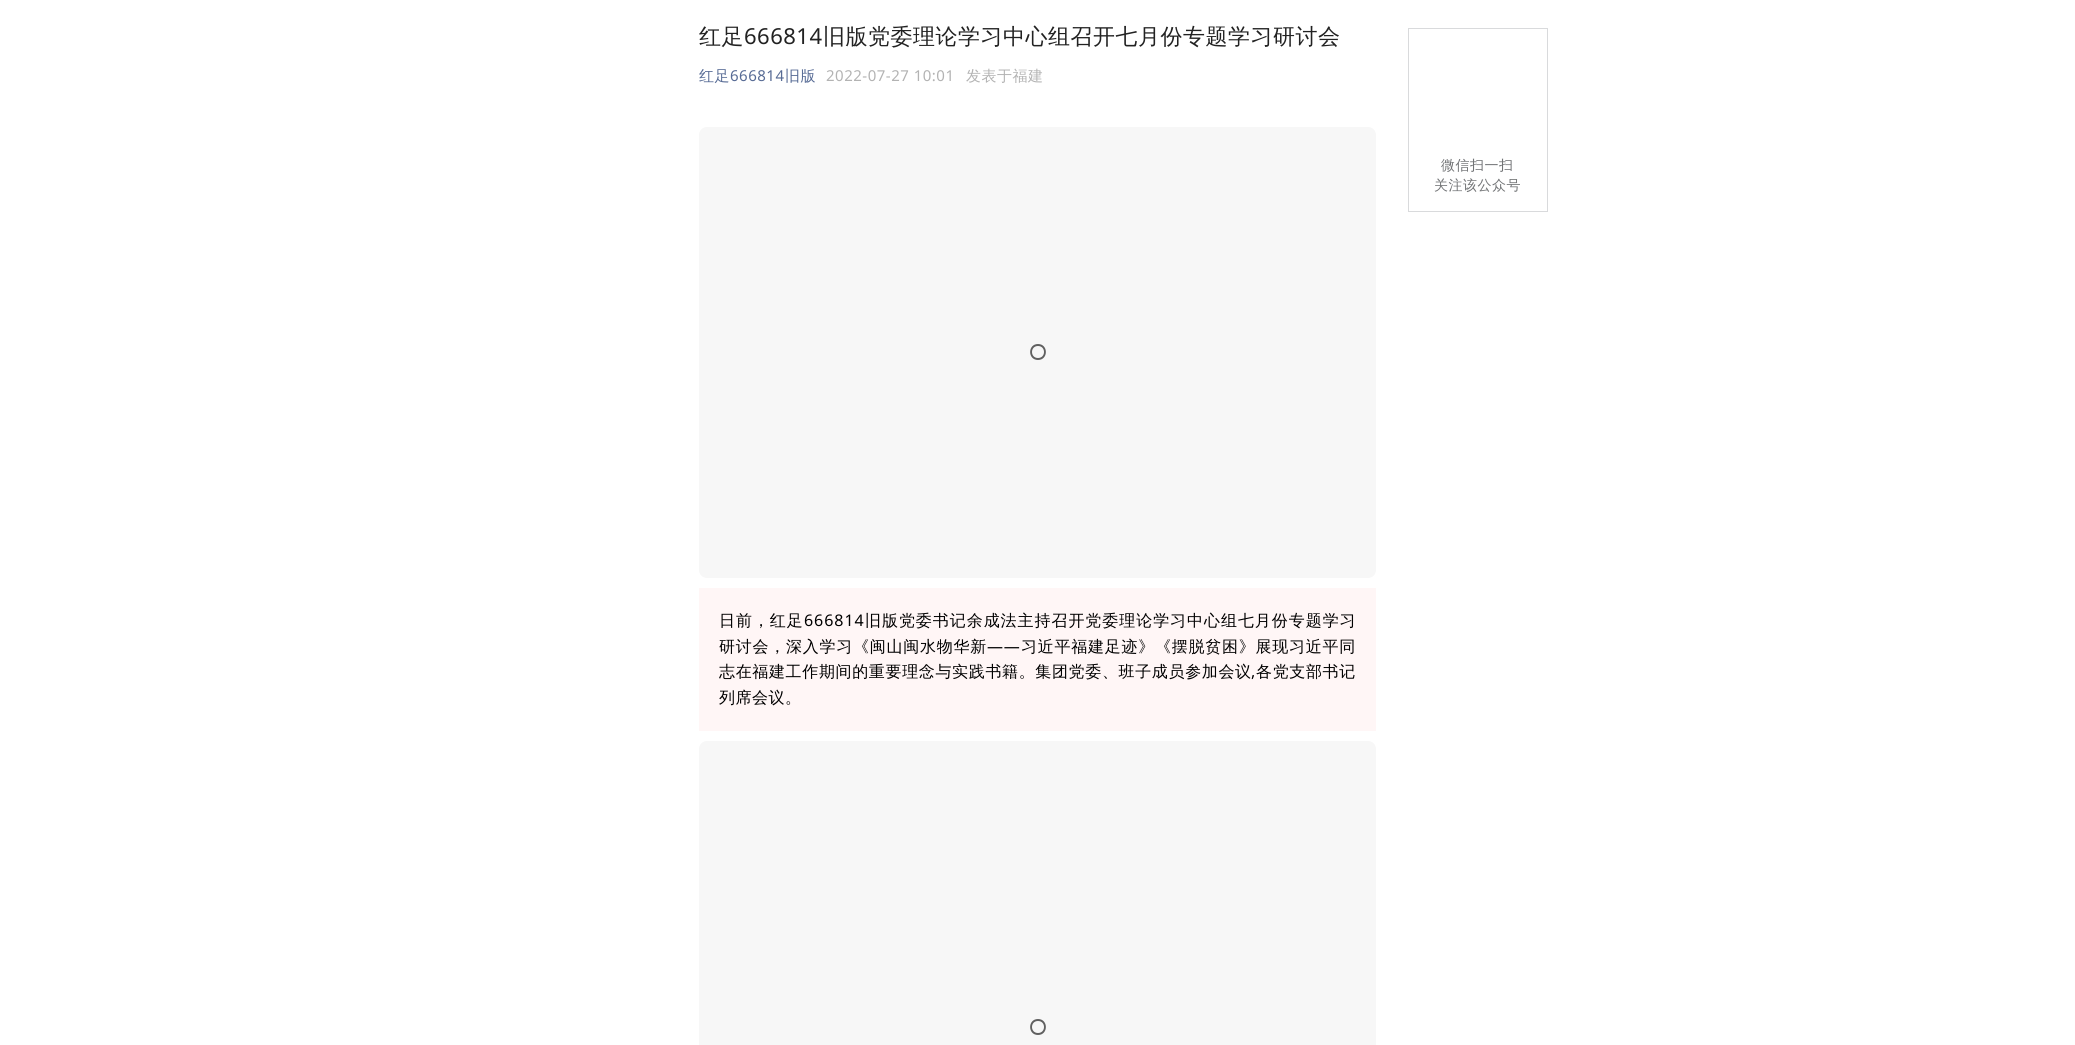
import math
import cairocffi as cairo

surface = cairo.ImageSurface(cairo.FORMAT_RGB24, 2075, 1045)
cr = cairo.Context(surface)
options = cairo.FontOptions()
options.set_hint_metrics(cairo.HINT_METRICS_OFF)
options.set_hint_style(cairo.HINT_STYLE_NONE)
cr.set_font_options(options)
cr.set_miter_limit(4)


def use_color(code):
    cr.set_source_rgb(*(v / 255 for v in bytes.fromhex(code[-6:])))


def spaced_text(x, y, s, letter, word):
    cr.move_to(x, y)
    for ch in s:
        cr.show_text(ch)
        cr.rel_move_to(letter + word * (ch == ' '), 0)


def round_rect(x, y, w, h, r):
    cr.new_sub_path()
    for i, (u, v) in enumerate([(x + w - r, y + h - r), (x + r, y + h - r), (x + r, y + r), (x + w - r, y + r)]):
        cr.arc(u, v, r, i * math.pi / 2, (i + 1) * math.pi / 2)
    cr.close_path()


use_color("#ffffff")
cr.paint()
cr.select_font_face("WenQuanYi Zen Hei Medium")
cr.set_font_size(22)
use_color("#222222")
spaced_text(699, 44, "红足", 0.5, 0)
cr.select_font_face("Noto Sans")
spaced_text(744, 44, "666814", 0.5, 0)
cr.select_font_face("WenQuanYi Zen Hei Medium")
spaced_text(823, 44, "旧版党委理论学习中心组召开七月份专题学习研讨会", 0.5, 0)
cr.set_font_size(15)
use_color("#576b95")
spaced_text(699, 81, "红足", 0.5, 0)
cr.select_font_face("Noto Sans")
spaced_text(730, 81, "666814", 0.5, 0)
cr.select_font_face("WenQuanYi Zen Hei Medium")
spaced_text(785, 81, "旧版", 0.5, 0)
cr.select_font_face("Noto Sans")
use_color("#b3b3b3")
spaced_text(826, 81, "2022-07-27 10:01", 0.5, 0)
cr.select_font_face("WenQuanYi Zen Hei Medium")
spaced_text(966, 81, "发表于福建", 0.5, 0)
use_color("#f7f7f7")
round_rect(699, 127, 677, 451, 8)
cr.fill()
use_color("#606060")
cr.set_fill_rule(cairo.FILL_RULE_EVEN_ODD)
cr.new_path()
cr.move_to(1038, 344)
cr.line_to(1038, 360)
cr.curve_to(1027.5, 360, 1027.5, 344, 1038, 344)
cr.close_path()
cr.move_to(1038, 346)
cr.line_to(1038, 358)
cr.curve_to(1030, 358, 1030, 346, 1038, 346)
cr.close_path()
cr.move_to(1038, 344)
cr.curve_to(1048.5, 344, 1048.5, 360, 1038, 360)
cr.close_path()
cr.move_to(1038, 346)
cr.curve_to(1046, 346, 1046, 358, 1038, 358)
cr.close_path()
cr.fill()
use_color("#fff6f6")
cr.rectangle(699, 588, 677, 143)
cr.fill()
cr.set_font_size(16)
use_color("#000000")
spaced_text(719, 626, "日前，红足", 0.95, 0)
cr.select_font_face("Noto Sans")
spaced_text(804, 626, "666814", 0.95, 0)
cr.select_font_face("WenQuanYi Zen Hei Medium")
spaced_text(865, 626, "旧版党委书记余成法主持召开党委理论学习中心组七月份专题学习", 0.95, 0)
spaced_text(719, 652, "研讨会，深入学习《闽山闽水物华新", 0.75, 0)
cr.select_font_face("Noto Sans")
spaced_text(987, 652, "——", 0.75, 0)
cr.select_font_face("WenQuanYi Zen Hei Medium")
spaced_text(1021, 652, "习近平福建足迹》《摆脱贫困》展现习近平同", 0.75, 0)
spaced_text(719, 677, "志在福建工作期间的重要理念与实践书籍。集团党委、班子成员参加会议", 0.65, 0)
cr.select_font_face("Noto Sans")
spaced_text(1251, 677, ",", 0.65, 0)
cr.select_font_face("WenQuanYi Zen Hei Medium")
spaced_text(1256, 677, "各党支部书记", 0.65, 0)
spaced_text(719, 703, "列席会议。", 0.5, 0)
use_color("#f7f7f7")
round_rect(699, 741, 677, 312, 8)
cr.fill()
use_color("#606060")
cr.new_path()
cr.move_to(1038, 1019)
cr.line_to(1038, 1035)
cr.curve_to(1027.5, 1035, 1027.5, 1019, 1038, 1019)
cr.close_path()
cr.move_to(1038, 1021)
cr.line_to(1038, 1033)
cr.curve_to(1030, 1033, 1030, 1021, 1038, 1021)
cr.close_path()
cr.move_to(1038, 1019)
cr.curve_to(1048.5, 1019, 1048.5, 1035, 1038, 1035)
cr.close_path()
cr.move_to(1038, 1021)
cr.curve_to(1046, 1021, 1046, 1033, 1038, 1033)
cr.close_path()
cr.fill()
cr.rectangle(1408.5, 28.5, 139, 183)
use_color("#d9dadc")
cr.set_line_width(1)
cr.stroke()
cr.set_font_size(14)
use_color("#717375")
spaced_text(1441, 170, "微信扫一扫", 0.5, 0)
spaced_text(1434, 190, "关注该公众号", 0.5, 0)
surface.write_to_png("result.png")
